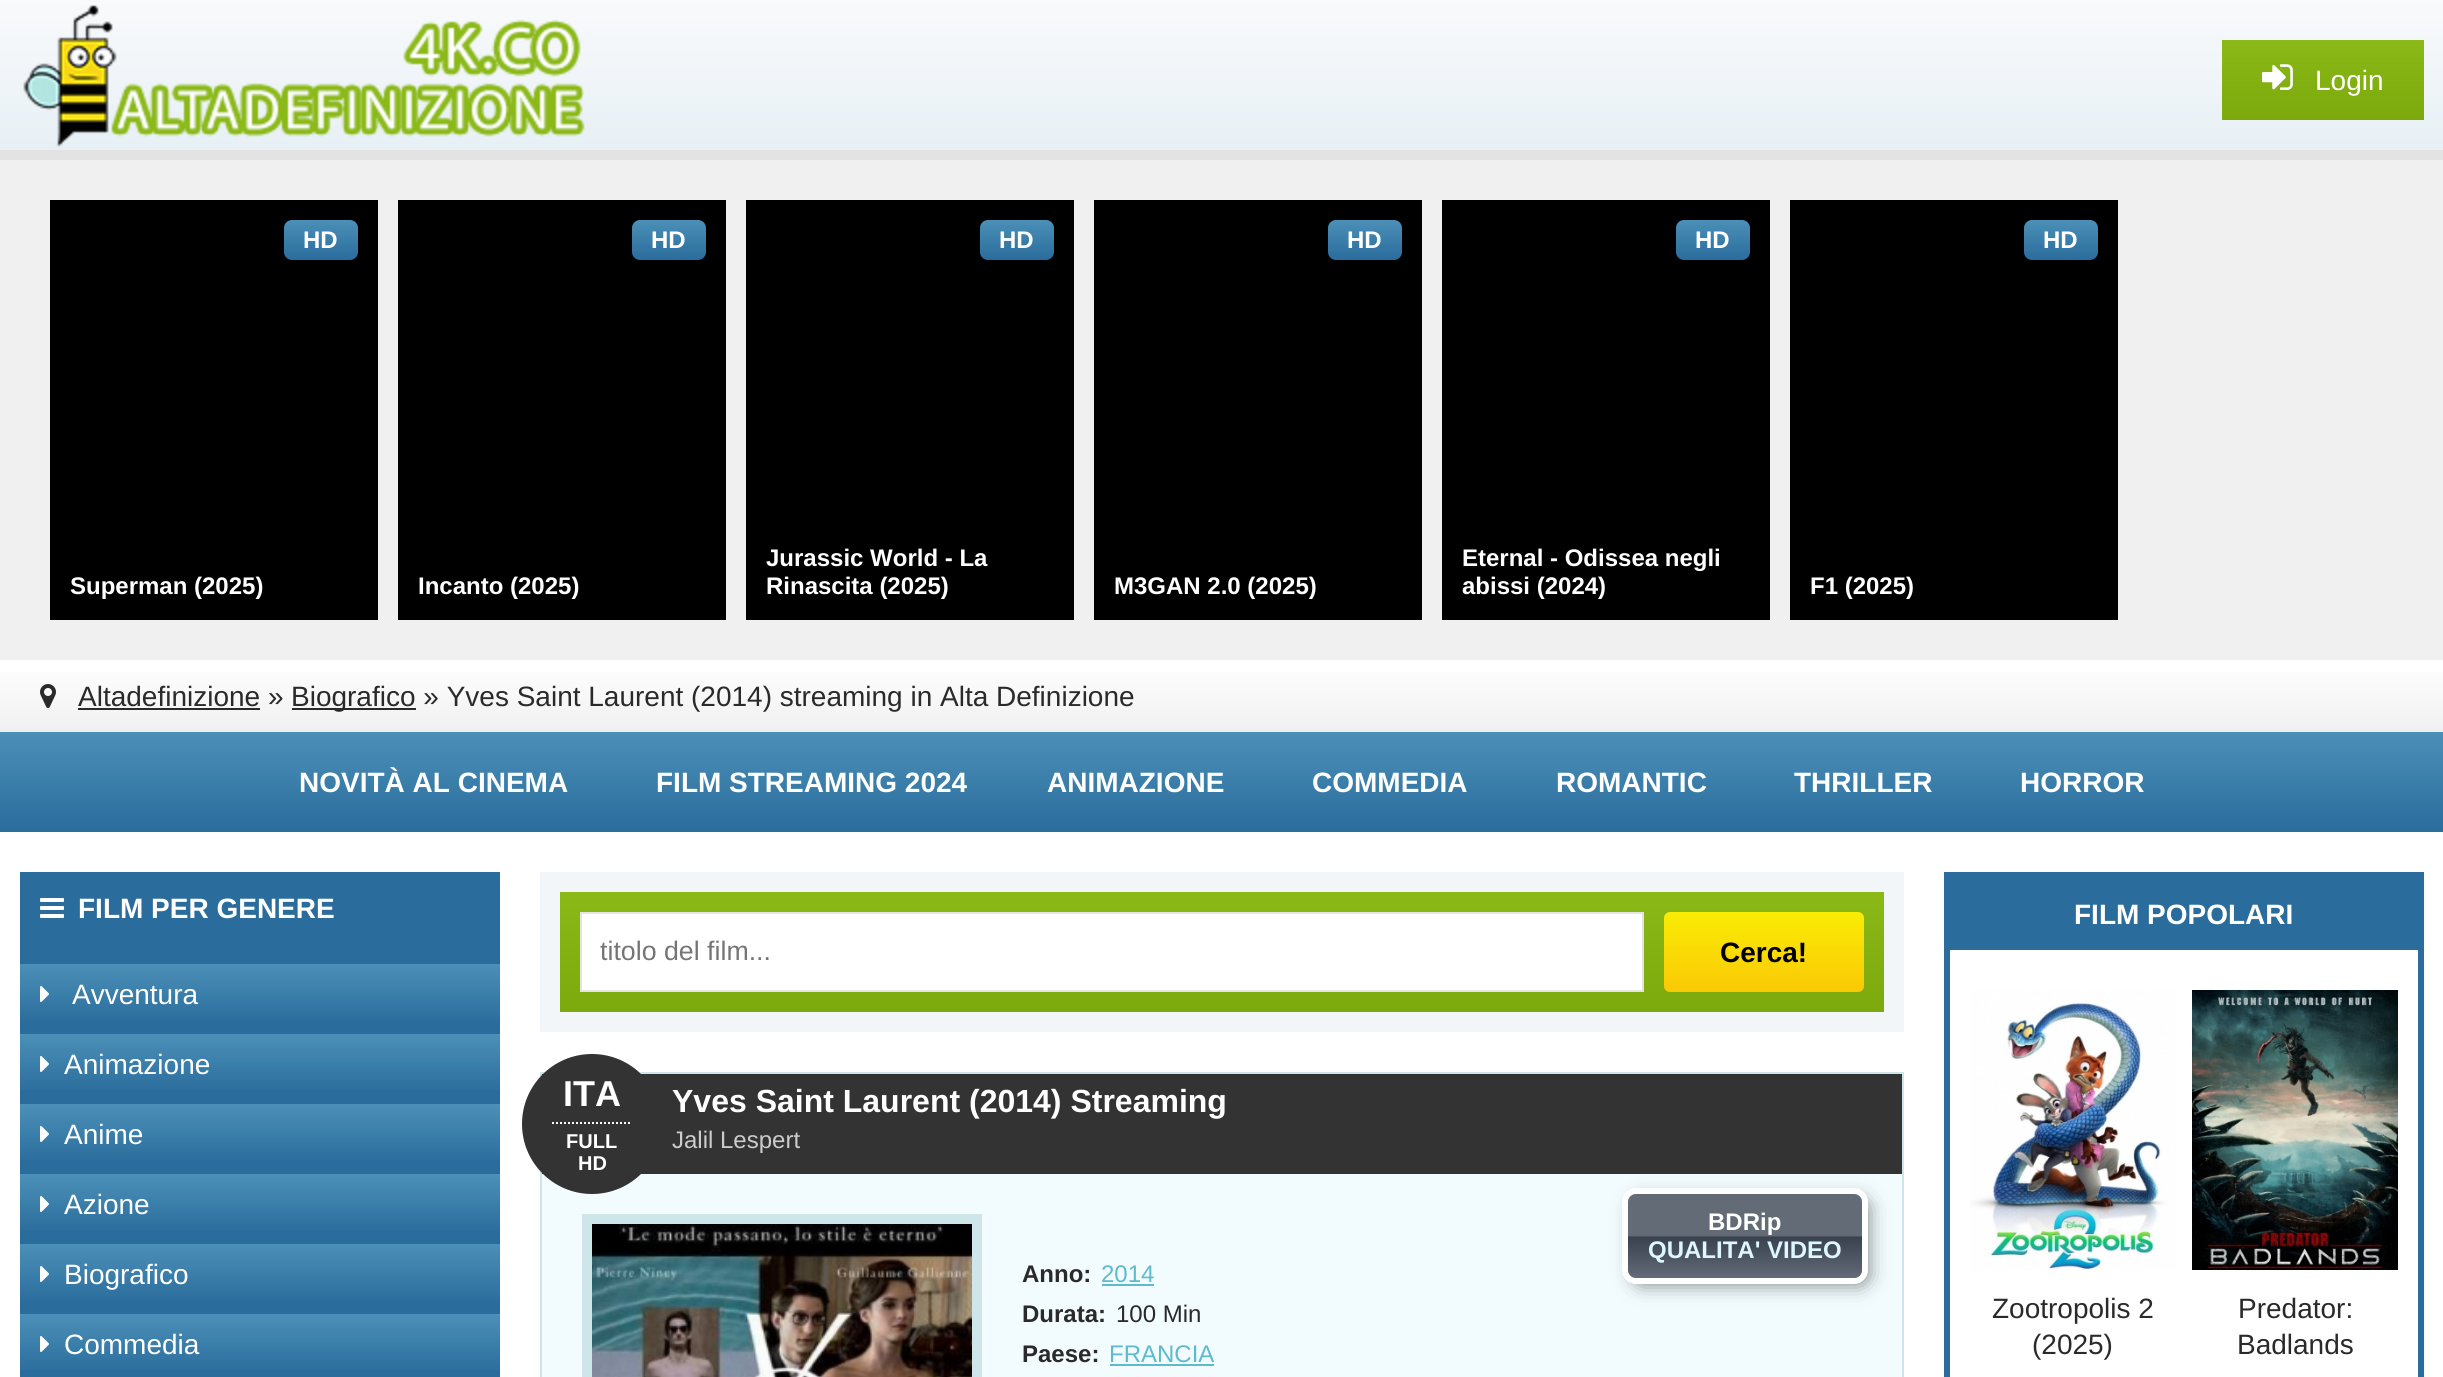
import math
import cairocffi as cairo

surface = cairo.ImageSurface(cairo.FORMAT_RGB24, 2443, 1377)
cr = cairo.Context(surface)
options = cairo.FontOptions()
options.set_hint_metrics(cairo.HINT_METRICS_OFF)
options.set_hint_style(cairo.HINT_STYLE_NONE)
cr.set_font_options(options)
cr.set_miter_limit(4)


def use_color(code):
    cr.set_source_rgb(*(v / 255 for v in bytes.fromhex(code[-6:])))


def round_rect(x, y, w, h, r):
    cr.new_sub_path()
    for i, (u, v) in enumerate([(x + w - r, y + h - r), (x + r, y + h - r), (x + r, y + r), (x + w - r, y + r)]):
        cr.arc(u, v, r, i * math.pi / 2, (i + 1) * math.pi / 2)
    cr.close_path()


def shadow(x, y, w, h, r, blur, alpha):
    cr.push_group_with_content(cairo.CONTENT_ALPHA)
    cr.set_operator(cairo.OPERATOR_SOURCE)
    for i in range(15, -16, -2):
        e = blur * i / 6
        if min(w, h) + 2 * e > 0:
            cr.set_source_rgba(0, 0, 0, alpha * math.erfc((i - 1) / 8.5) / 2)
            round_rect(x - e, y - e, w + 2 * e, h + 2 * e, max(0, min(r + e + blur * .6, min(w, h) / 2 + e)))
            cr.fill()
    cr.mask(cr.pop_group())


def picture(path, x, y, w, h):
    cr.save()
    cr.set_source_surface(cairo.ImageSurface.create_from_png(path), x, y)
    cr.rectangle(x, y, w, h)
    cr.fill()
    cr.restore()


use_color("#ffffff")
cr.paint()
gradient = cairo.LinearGradient(1222, 0, 1222, 150)
gradient.add_color_stop_rgba(0, 0.976, 0.98, 0.988, 1)
gradient.add_color_stop_rgba(1, 0.906, 0.941, 0.961, 1)
cr.set_source(gradient)
cr.rectangle(0, 0, 2443, 150)
cr.fill()
use_color("#e3e3e3")
cr.rectangle(0, 150, 2443, 10)
cr.fill()
picture("img1.png", 23, 5, 562, 142)
gradient = cairo.LinearGradient(2323, 40, 2323, 120)
gradient.add_color_stop_rgba(0, 0.545, 0.725, 0.09, 1)
gradient.add_color_stop_rgba(1, 0.486, 0.663, 0.047, 1)
cr.set_source(gradient)
cr.rectangle(2222, 40, 202, 80)
cr.fill()
picture("img2.png", 2262, 64, 31, 26)
cr.select_font_face("Liberation Sans")
cr.set_font_size(28)
use_color("#ffffff")
cr.move_to(2315, 90)
cr.show_text("Login")
use_color("#f0f0f0")
cr.rectangle(0, 160, 2443, 500)
cr.fill()
use_color("#000000")
cr.rectangle(50, 200, 328, 420)
cr.fill()
gradient = cairo.LinearGradient(321, 220, 321, 260)
gradient.add_color_stop_rgba(0, 0.294, 0.565, 0.722, 1)
gradient.add_color_stop_rgba(1, 0.165, 0.424, 0.612, 1)
cr.set_source(gradient)
round_rect(284, 220, 74, 40, 8)
cr.fill()
cr.select_font_face("Liberation Sans", cairo.FONT_SLANT_NORMAL, cairo.FONT_WEIGHT_BOLD)
cr.set_font_size(24)
use_color("#ffffff")
cr.move_to(303, 248)
cr.show_text("HD")
cr.move_to(70, 594)
cr.show_text("Superman (2025)")
use_color("#000000")
cr.rectangle(398, 200, 328, 420)
cr.fill()
gradient = cairo.LinearGradient(669, 220, 669, 260)
gradient.add_color_stop_rgba(0, 0.294, 0.565, 0.722, 1)
gradient.add_color_stop_rgba(1, 0.165, 0.424, 0.612, 1)
cr.set_source(gradient)
round_rect(632, 220, 74, 40, 8)
cr.fill()
use_color("#ffffff")
cr.move_to(651, 248)
cr.show_text("HD")
cr.move_to(418, 594)
cr.show_text("Incanto (2025)")
use_color("#000000")
cr.rectangle(746, 200, 328, 420)
cr.fill()
gradient = cairo.LinearGradient(1017, 220, 1017, 260)
gradient.add_color_stop_rgba(0, 0.294, 0.565, 0.722, 1)
gradient.add_color_stop_rgba(1, 0.165, 0.424, 0.612, 1)
cr.set_source(gradient)
round_rect(980, 220, 74, 40, 8)
cr.fill()
use_color("#ffffff")
cr.move_to(999, 248)
cr.show_text("HD")
cr.move_to(766, 566)
cr.show_text("Jurassic World - La")
cr.move_to(766, 594)
cr.show_text("Rinascita (2025)")
use_color("#000000")
cr.rectangle(1094, 200, 328, 420)
cr.fill()
gradient = cairo.LinearGradient(1365, 220, 1365, 260)
gradient.add_color_stop_rgba(0, 0.294, 0.565, 0.722, 1)
gradient.add_color_stop_rgba(1, 0.165, 0.424, 0.612, 1)
cr.set_source(gradient)
round_rect(1328, 220, 74, 40, 8)
cr.fill()
use_color("#ffffff")
cr.move_to(1347, 248)
cr.show_text("HD")
cr.move_to(1114, 594)
cr.show_text("M3GAN 2.0 (2025)")
use_color("#000000")
cr.rectangle(1442, 200, 328, 420)
cr.fill()
gradient = cairo.LinearGradient(1713, 220, 1713, 260)
gradient.add_color_stop_rgba(0, 0.294, 0.565, 0.722, 1)
gradient.add_color_stop_rgba(1, 0.165, 0.424, 0.612, 1)
cr.set_source(gradient)
round_rect(1676, 220, 74, 40, 8)
cr.fill()
use_color("#ffffff")
cr.move_to(1695, 248)
cr.show_text("HD")
cr.move_to(1462, 566)
cr.show_text("Eternal - Odissea negli")
cr.move_to(1462, 594)
cr.show_text("abissi (2024)")
use_color("#000000")
cr.rectangle(1790, 200, 328, 420)
cr.fill()
gradient = cairo.LinearGradient(2061, 220, 2061, 260)
gradient.add_color_stop_rgba(0, 0.294, 0.565, 0.722, 1)
gradient.add_color_stop_rgba(1, 0.165, 0.424, 0.612, 1)
cr.set_source(gradient)
round_rect(2024, 220, 74, 40, 8)
cr.fill()
use_color("#ffffff")
cr.move_to(2043, 248)
cr.show_text("HD")
cr.move_to(1810, 594)
cr.show_text("F1 (2025)")
gradient = cairo.LinearGradient(1222, 660, 1222, 732)
gradient.add_color_stop_rgba(0, 1, 1, 1, 1)
gradient.add_color_stop_rgba(1, 0.941, 0.941, 0.941, 1)
cr.set_source(gradient)
cr.rectangle(0, 672, 2443, 60)
cr.fill()
picture("img3.png", 40, 684, 16, 24)
cr.select_font_face("Liberation Sans")
cr.set_font_size(28)
use_color("#2a2a2a")
cr.move_to(78, 706)
cr.show_text("Altadefinizione »")
cr.rectangle(78, 708, 182, 2)
cr.fill()
cr.rectangle(292, 708, 124, 2)
cr.fill()
cr.move_to(291, 706)
cr.show_text("Biografico » Yves Saint Laurent (2014) streaming in Alta Definizione")
gradient = cairo.LinearGradient(1222, 732, 1222, 832)
gradient.add_color_stop_rgba(0, 0.294, 0.565, 0.722, 1)
gradient.add_color_stop_rgba(1, 0.165, 0.424, 0.612, 1)
cr.set_source(gradient)
cr.rectangle(0, 732, 2443, 100)
cr.fill()
cr.select_font_face("Liberation Sans", cairo.FONT_SLANT_NORMAL, cairo.FONT_WEIGHT_BOLD)
use_color("#ffffff")
cr.move_to(299, 792)
cr.show_text("NOVITÀ AL CINEMA")
cr.move_to(656, 792)
cr.show_text("FILM STREAMING 2024")
cr.move_to(1047, 792)
cr.show_text("ANIMAZIONE")
cr.move_to(1312, 792)
cr.show_text("COMMEDIA")
cr.move_to(1556, 792)
cr.show_text("ROMANTIC")
cr.move_to(1794, 792)
cr.show_text("THRILLER")
cr.move_to(2020, 792)
cr.show_text("HORROR")
use_color("#2a6c9c")
cr.rectangle(20, 872, 480, 505)
cr.fill()
picture("img4.png", 40, 898, 24, 20)
use_color("#ffffff")
cr.move_to(78, 918)
cr.show_text("FILM PER GENERE")
gradient = cairo.LinearGradient(260, 964, 260, 1024)
gradient.add_color_stop_rgba(0, 0.294, 0.565, 0.722, 1)
gradient.add_color_stop_rgba(1, 0.165, 0.424, 0.612, 1)
cr.set_source(gradient)
cr.rectangle(20, 964, 480, 56)
cr.fill()
picture("img5.png", 40, 986, 9, 16)
cr.select_font_face("Liberation Sans")
use_color("#ffffff")
cr.move_to(72, 1004)
cr.show_text("Avventura")
gradient = cairo.LinearGradient(260, 1034, 260, 1094)
gradient.add_color_stop_rgba(0, 0.294, 0.565, 0.722, 1)
gradient.add_color_stop_rgba(1, 0.165, 0.424, 0.612, 1)
cr.set_source(gradient)
cr.rectangle(20, 1034, 480, 56)
cr.fill()
picture("img5.png", 40, 1056, 9, 16)
use_color("#ffffff")
cr.move_to(64, 1074)
cr.show_text("Animazione")
gradient = cairo.LinearGradient(260, 1104, 260, 1164)
gradient.add_color_stop_rgba(0, 0.294, 0.565, 0.722, 1)
gradient.add_color_stop_rgba(1, 0.165, 0.424, 0.612, 1)
cr.set_source(gradient)
cr.rectangle(20, 1104, 480, 56)
cr.fill()
picture("img5.png", 40, 1126, 9, 16)
use_color("#ffffff")
cr.move_to(64, 1144)
cr.show_text("Anime")
gradient = cairo.LinearGradient(260, 1174, 260, 1234)
gradient.add_color_stop_rgba(0, 0.294, 0.565, 0.722, 1)
gradient.add_color_stop_rgba(1, 0.165, 0.424, 0.612, 1)
cr.set_source(gradient)
cr.rectangle(20, 1174, 480, 56)
cr.fill()
picture("img5.png", 40, 1196, 9, 16)
use_color("#ffffff")
cr.move_to(64, 1214)
cr.show_text("Azione")
gradient = cairo.LinearGradient(260, 1244, 260, 1304)
gradient.add_color_stop_rgba(0, 0.294, 0.565, 0.722, 1)
gradient.add_color_stop_rgba(1, 0.165, 0.424, 0.612, 1)
cr.set_source(gradient)
cr.rectangle(20, 1244, 480, 56)
cr.fill()
picture("img5.png", 40, 1266, 9, 16)
use_color("#ffffff")
cr.move_to(64, 1284)
cr.show_text("Biografico")
gradient = cairo.LinearGradient(260, 1314, 260, 1374)
gradient.add_color_stop_rgba(0, 0.294, 0.565, 0.722, 1)
gradient.add_color_stop_rgba(1, 0.165, 0.424, 0.612, 1)
cr.set_source(gradient)
cr.rectangle(20, 1314, 480, 56)
cr.fill()
picture("img5.png", 40, 1336, 9, 16)
use_color("#ffffff")
cr.move_to(64, 1354)
cr.show_text("Commedia")
use_color("#f2f6f8")
cr.rectangle(540, 872, 1364, 160)
cr.fill()
gradient = cairo.LinearGradient(1222, 892, 1222, 1012)
gradient.add_color_stop_rgba(0, 0.545, 0.725, 0.09, 1)
gradient.add_color_stop_rgba(1, 0.486, 0.663, 0.047, 1)
cr.set_source(gradient)
cr.rectangle(560, 892, 1324, 120)
cr.fill()
use_color("#ffffff")
cr.rectangle(581, 913, 1062, 78)
cr.fill_preserve()
use_color("#e3e3e3")
cr.stroke()
cr.set_font_size(26.75)
use_color("#757575")
cr.move_to(600, 960)
cr.show_text("titolo del film...")
gradient = cairo.LinearGradient(1764, 912, 1764, 992)
gradient.add_color_stop_rgba(0, 0.98, 0.925, 0.02, 1)
gradient.add_color_stop_rgba(1, 0.98, 0.788, 0.02, 1)
cr.set_source(gradient)
round_rect(1664, 912, 200, 80, 6)
cr.fill()
cr.select_font_face("Liberation Sans", cairo.FONT_SLANT_NORMAL, cairo.FONT_WEIGHT_BOLD)
cr.set_font_size(28)
use_color("#000000")
cr.move_to(1720, 962)
cr.show_text("Cerca!")
use_color("#f2fcfe")
cr.rectangle(542, 1174, 1360, 203)
cr.fill()
cr.rectangle(541, 1073, 1362, 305)
use_color("#cee5ea")
cr.stroke()
use_color("#333333")
cr.rectangle(542, 1074, 1360, 100)
cr.fill()
cr.arc(592, 1124, 70, 0, 2 * math.pi)
cr.fill()
cr.new_path()
cr.move_to(552, 1123)
cr.line_to(632, 1123)
use_color("#ffffff")
cr.set_dash([2, 2])
cr.stroke()
cr.set_font_size(36)
cr.move_to(563, 1106)
cr.show_text("ITA")
cr.set_font_size(20)
cr.move_to(566, 1148)
cr.show_text("FULL")
cr.move_to(578, 1170)
cr.show_text("HD")
cr.set_font_size(32)
cr.move_to(672, 1112)
cr.show_text("Yves Saint Laurent (2014) Streaming")
cr.select_font_face("Liberation Sans")
cr.set_font_size(24)
use_color("#cccccc")
cr.move_to(672, 1148)
cr.show_text("Jalil Lespert")
cr.rectangle(587, 1219, 390, 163)
use_color("#cee5ea")
cr.set_line_width(10)
cr.set_dash([])
cr.stroke()
picture("img6.png", 592, 1224, 380, 153)
use_color("#000000")
shadow(1634, 1200, 234, 84, 8, 10, 0.5)
round_rect(1625, 1191, 240, 90, 11)
use_color("#ffffff")
cr.set_line_width(6)
cr.stroke()
gradient = cairo.LinearGradient(1745, 1194, 1745, 1278)
gradient.add_color_stop_rgba(0, 0.388, 0.42, 0.467, 1)
gradient.add_color_stop_rgba(0.5, 0.388, 0.42, 0.467, 1)
gradient.add_color_stop_rgba(0.51, 0.224, 0.255, 0.306, 1)
gradient.add_color_stop_rgba(1, 0.388, 0.42, 0.467, 1)
cr.set_source(gradient)
round_rect(1628, 1194, 234, 84, 8)
cr.fill()
cr.select_font_face("Liberation Sans", cairo.FONT_SLANT_NORMAL, cairo.FONT_WEIGHT_BOLD)
use_color("#ffffff")
cr.move_to(1708, 1230)
cr.show_text("BDRip")
use_color("#dcf7ff")
cr.move_to(1648, 1258)
cr.show_text("QUALITA' VIDEO")
use_color("#2a2a2a")
cr.move_to(1022, 1282)
cr.show_text("Anno:")
cr.select_font_face("Liberation Sans")
use_color("#5ebbce")
cr.move_to(1101, 1282)
cr.show_text("2014")
cr.rectangle(1102, 1284, 52, 2)
cr.fill()
cr.select_font_face("Liberation Sans", cairo.FONT_SLANT_NORMAL, cairo.FONT_WEIGHT_BOLD)
use_color("#2a2a2a")
cr.move_to(1022, 1322)
cr.show_text("Durata:")
cr.select_font_face("Liberation Sans")
cr.move_to(1116, 1322)
cr.show_text("100 Min")
cr.select_font_face("Liberation Sans", cairo.FONT_SLANT_NORMAL, cairo.FONT_WEIGHT_BOLD)
cr.move_to(1022, 1362)
cr.show_text("Paese:")
cr.select_font_face("Liberation Sans")
use_color("#5ebbce")
cr.move_to(1109, 1362)
cr.show_text("FRANCIA")
cr.rectangle(1110, 1364, 104, 2)
cr.fill()
cr.rectangle(1947, 875, 474, 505)
use_color("#2a6c9c")
cr.stroke()
cr.rectangle(1950, 878, 468, 72)
cr.fill()
cr.select_font_face("Liberation Sans", cairo.FONT_SLANT_NORMAL, cairo.FONT_WEIGHT_BOLD)
cr.set_font_size(28)
use_color("#ffffff")
cr.move_to(2074, 924)
cr.show_text("FILM POPOLARI")
picture("img7.png", 1970, 990, 206, 280)
cr.select_font_face("Liberation Sans")
use_color("#2a2a2a")
cr.move_to(1992, 1318)
cr.show_text("Zootropolis 2")
cr.move_to(2032, 1354)
cr.show_text("(2025)")
picture("img8.png", 2192, 990, 206, 280)
cr.move_to(2238, 1318)
cr.show_text("Predator:")
cr.move_to(2237, 1354)
cr.show_text("Badlands")
surface.write_to_png("result.png")
